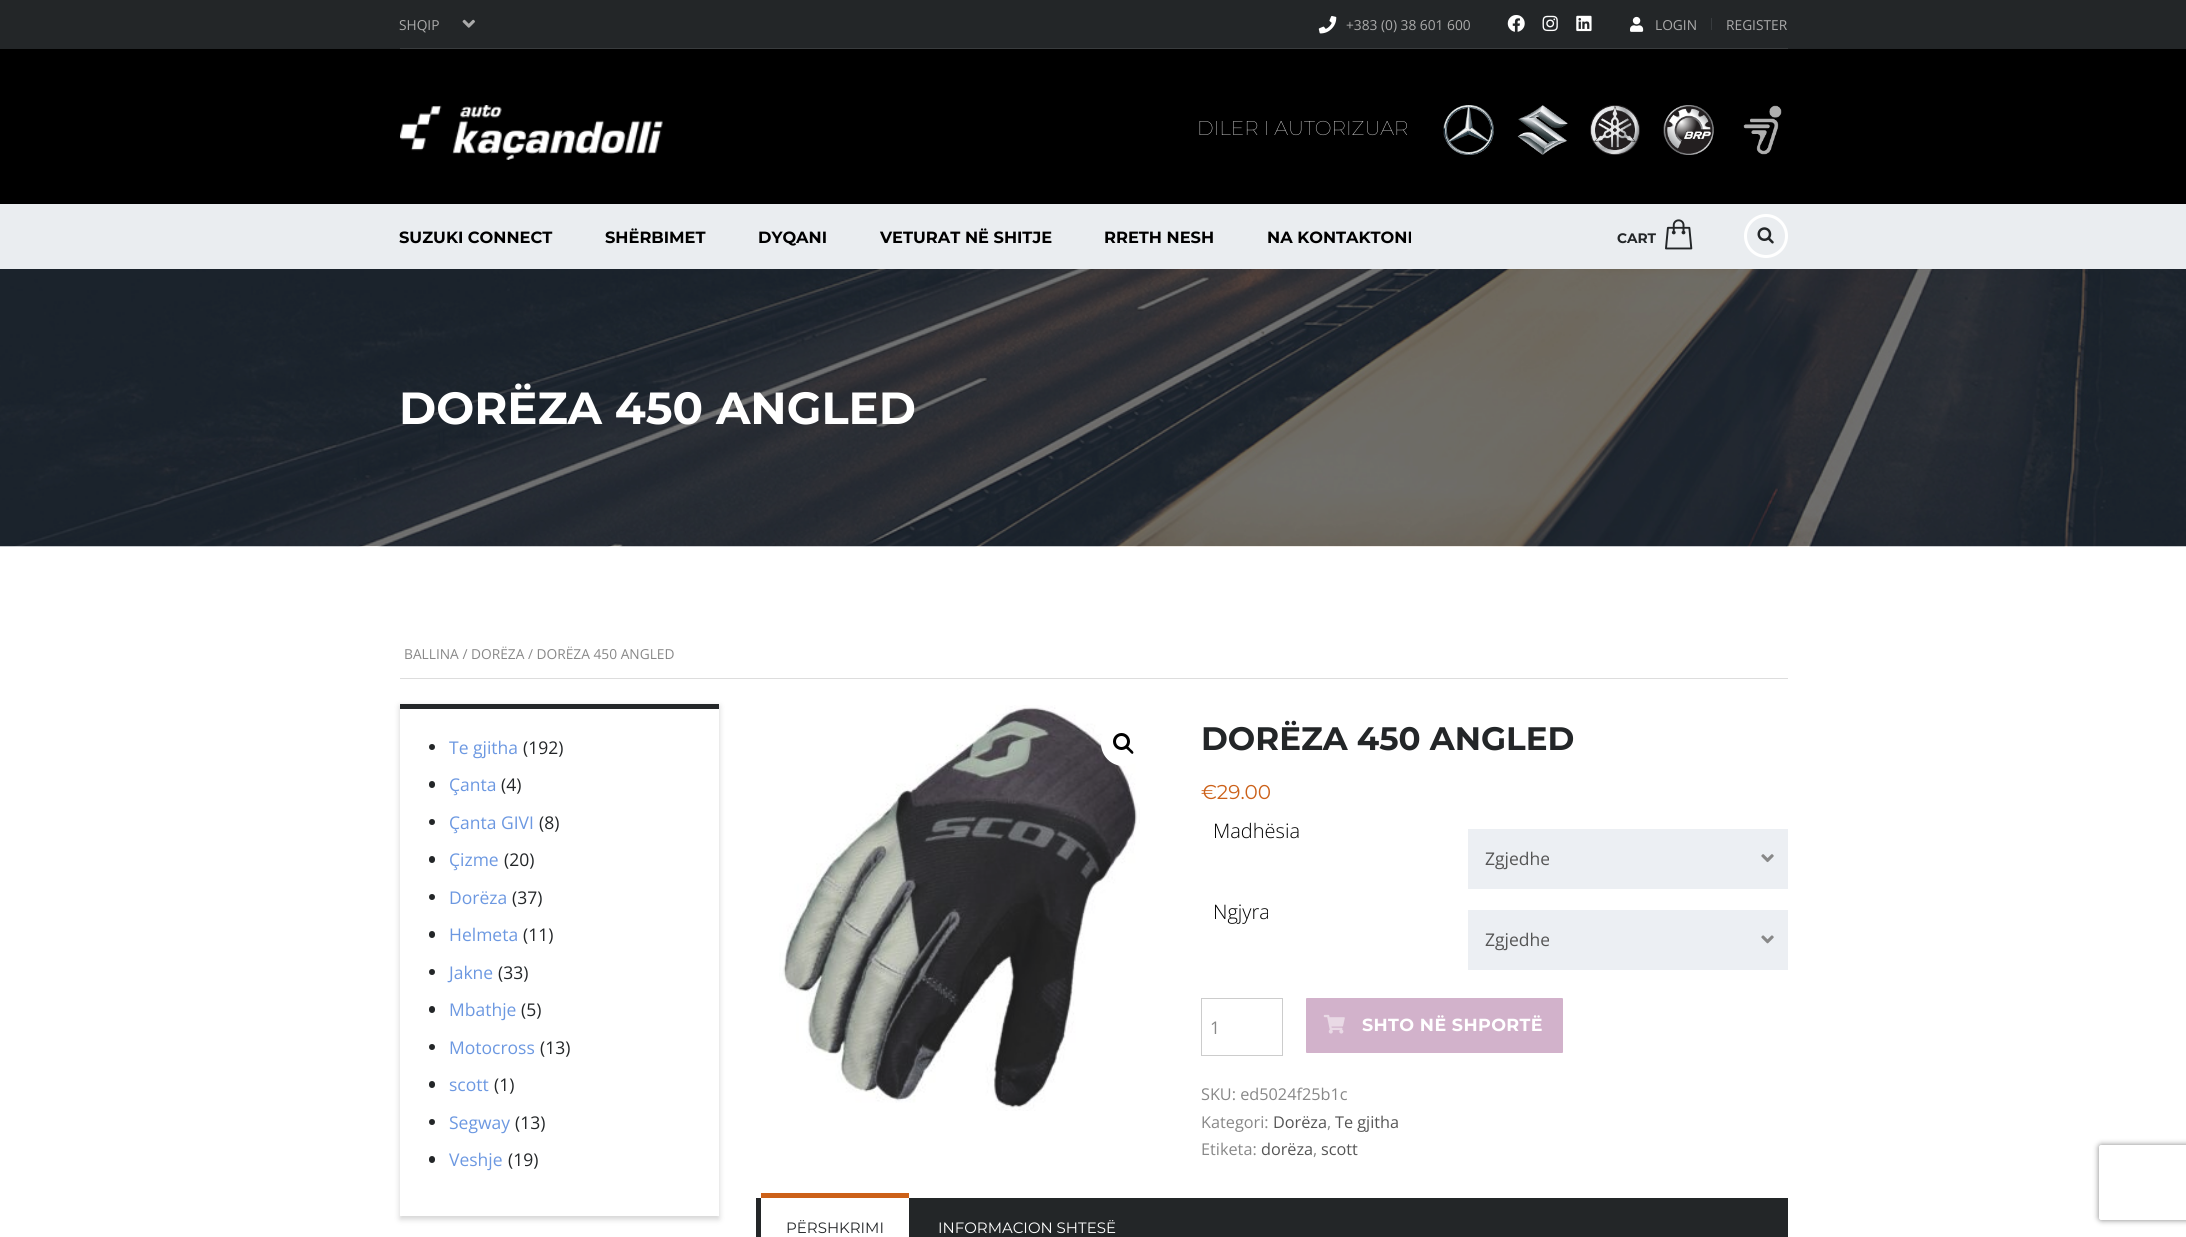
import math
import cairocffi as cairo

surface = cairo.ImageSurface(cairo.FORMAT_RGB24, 2186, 1237)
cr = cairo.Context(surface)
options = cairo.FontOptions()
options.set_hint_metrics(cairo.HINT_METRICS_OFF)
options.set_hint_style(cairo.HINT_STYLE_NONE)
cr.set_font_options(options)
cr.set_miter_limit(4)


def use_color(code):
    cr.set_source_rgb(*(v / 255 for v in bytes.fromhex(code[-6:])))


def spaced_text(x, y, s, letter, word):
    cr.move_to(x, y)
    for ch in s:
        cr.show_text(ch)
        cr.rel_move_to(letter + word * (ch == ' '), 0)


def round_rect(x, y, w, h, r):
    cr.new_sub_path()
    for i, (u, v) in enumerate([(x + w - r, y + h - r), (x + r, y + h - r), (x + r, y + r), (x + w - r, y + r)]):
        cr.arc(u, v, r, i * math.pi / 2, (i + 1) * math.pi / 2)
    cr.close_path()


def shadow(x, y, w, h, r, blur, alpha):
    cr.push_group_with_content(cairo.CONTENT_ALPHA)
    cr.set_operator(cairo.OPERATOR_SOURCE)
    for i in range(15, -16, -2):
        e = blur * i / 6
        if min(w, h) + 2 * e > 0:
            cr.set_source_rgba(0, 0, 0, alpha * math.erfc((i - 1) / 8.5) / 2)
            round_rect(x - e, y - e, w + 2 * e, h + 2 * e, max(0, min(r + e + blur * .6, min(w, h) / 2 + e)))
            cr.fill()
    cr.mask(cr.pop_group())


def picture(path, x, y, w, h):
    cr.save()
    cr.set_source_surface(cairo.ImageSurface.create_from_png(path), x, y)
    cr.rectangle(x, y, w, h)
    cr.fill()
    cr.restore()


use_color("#ffffff")
cr.paint()
use_color("#232628")
cr.rectangle(0, 0, 2186, 49)
cr.fill()
use_color("#393c3e")
cr.rectangle(400, 48, 1388, 1)
cr.fill()
cr.select_font_face("Open Sans")
cr.set_font_size(13.75)
use_color("#aaaaaa")
cr.move_to(399, 30)
cr.show_text("SHQIP")
picture("img1.png", 462, 19, 13, 9)
picture("img2.png", 1318, 16, 19, 18)
cr.move_to(1346, 30)
cr.show_text("+383 (0) 38 601 600")
picture("img3.png", 1507, 15, 18, 17)
picture("img4.png", 1542, 15, 16, 17)
picture("img5.png", 1576, 15, 16, 17)
picture("img6.png", 1630, 16, 14, 16)
cr.move_to(1655, 30)
cr.show_text("LOGIN")
use_color("#373b3e")
cr.rectangle(1711, 18, 1, 12)
cr.fill()
use_color("#aaaaaa")
cr.move_to(1726, 30)
cr.show_text("REGISTER")
use_color("#000000")
cr.rectangle(0, 49, 2186, 155)
cr.fill()
picture("img7.png", 400, 105, 263, 55)
cr.select_font_face("Montserrat Thin")
cr.set_font_size(20)
use_color("#ffffff")
cr.move_to(1197, 135)
cr.show_text("DILER I AUTORIZUAR")
picture("img8.png", 1443, 105, 51, 50)
picture("img9.png", 1517, 105, 51, 50)
picture("img10.png", 1590, 105, 50, 50)
picture("img11.png", 1663, 105, 51, 50)
picture("img12.png", 1743, 105, 39, 50)
use_color("#eaedf0")
cr.rectangle(0, 204, 2186, 65)
cr.fill()
cr.select_font_face("Montserrat", cairo.FONT_SLANT_NORMAL, cairo.FONT_WEIGHT_BOLD)
cr.set_font_size(16.25)
use_color("#000000")
cr.move_to(399, 243)
cr.show_text("SUZUKI CONNECT")
cr.move_to(605, 243)
cr.show_text("SHËRBIMET")
cr.move_to(758, 243)
cr.show_text("DYQANI")
cr.move_to(880, 243)
cr.show_text("VETURAT NË SHITJE")
cr.move_to(1104, 243)
cr.show_text("RRETH NESH")
cr.move_to(1267, 243)
cr.show_text("NA KONTAKTONI")
cr.set_font_size(13.75)
use_color("#232628")
cr.move_to(1617, 243)
cr.show_text("CART")
picture("img13.png", 1665, 219, 28, 31)
cr.arc(1766, 236, 20.5, 0, 2 * math.pi)
use_color("#ffffff")
cr.set_line_width(3)
cr.stroke()
picture("img14.png", 1757, 227, 17, 17)
picture("img15.png", 0, 269, 2186, 278)
cr.set_font_size(45)
cr.move_to(399, 424)
cr.show_text("DORËZA 450 ANGLED")
use_color("#dddddd")
cr.rectangle(400, 678, 1388, 1)
cr.fill()
cr.select_font_face("Open Sans")
cr.set_font_size(13.75)
use_color("#888888")
cr.move_to(404, 659)
cr.show_text("BALLINA / DORËZA / DORËZA 450 ANGLED")
cr.save()
cr.set_fill_rule(cairo.FILL_RULE_EVEN_ODD)
cr.new_path()
cr.move_to(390, 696)
cr.line_to(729, 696)
cr.line_to(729, 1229)
cr.line_to(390, 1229)
cr.close_path()
cr.move_to(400, 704)
cr.line_to(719, 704)
cr.line_to(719, 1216)
cr.line_to(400, 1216)
cr.close_path()
cr.clip()
use_color("#000000")
shadow(400, 706, 319, 513, 0, 3, 0.18)
cr.restore()
use_color("#232628")
cr.rectangle(400, 704, 319, 5)
cr.fill()
cr.arc(432, 747, 3, 0, 2 * math.pi)
cr.fill()
cr.set_font_size(17.5)
use_color("#6c98e1")
cr.move_to(449, 754)
cr.show_text("Te gjitha")
use_color("#232628")
cr.move_to(523, 754)
cr.show_text("(192)")
round_rect(429, 781, 6, 7, 3)
cr.fill()
use_color("#6c98e1")
cr.move_to(449, 791)
cr.show_text("Çanta")
use_color("#232628")
cr.move_to(501, 791)
cr.show_text("(4)")
cr.new_path()
cr.arc(432, 822, 3, 0, 2 * math.pi)
cr.fill()
use_color("#6c98e1")
cr.move_to(449, 829)
cr.show_text("Çanta GIVI")
use_color("#232628")
cr.move_to(539, 829)
cr.show_text("(8)")
round_rect(429, 856, 6, 7, 3)
cr.fill()
use_color("#6c98e1")
cr.move_to(449, 866)
cr.show_text("Çizme")
use_color("#232628")
cr.move_to(504, 866)
cr.show_text("(20)")
cr.new_path()
cr.arc(432, 897, 3, 0, 2 * math.pi)
cr.fill()
use_color("#6c98e1")
cr.move_to(449, 904)
cr.show_text("Dorëza")
use_color("#232628")
cr.move_to(512, 904)
cr.show_text("(37)")
round_rect(429, 931, 6, 7, 3)
cr.fill()
use_color("#6c98e1")
cr.move_to(449, 941)
cr.show_text("Helmeta")
use_color("#232628")
cr.move_to(523, 941)
cr.show_text("(11)")
cr.new_path()
cr.arc(432, 972, 3, 0, 2 * math.pi)
cr.fill()
use_color("#6c98e1")
cr.move_to(449, 979)
cr.show_text("Jakne")
use_color("#232628")
cr.move_to(498, 979)
cr.show_text("(33)")
round_rect(429, 1006, 6, 7, 3)
cr.fill()
use_color("#6c98e1")
cr.move_to(449, 1016)
cr.show_text("Mbathje")
use_color("#232628")
cr.move_to(521, 1016)
cr.show_text("(5)")
cr.new_path()
cr.arc(432, 1047, 3, 0, 2 * math.pi)
cr.fill()
use_color("#6c98e1")
cr.move_to(449, 1054)
cr.show_text("Motocross")
use_color("#232628")
cr.move_to(540, 1054)
cr.show_text("(13)")
round_rect(429, 1081, 6, 7, 3)
cr.fill()
use_color("#6c98e1")
cr.move_to(449, 1091)
cr.show_text("scott")
use_color("#232628")
cr.move_to(494, 1091)
cr.show_text("(1)")
cr.new_path()
cr.arc(432, 1122, 3, 0, 2 * math.pi)
cr.fill()
use_color("#6c98e1")
cr.move_to(449, 1129)
cr.show_text("Segway")
use_color("#232628")
cr.move_to(515, 1129)
cr.show_text("(13)")
round_rect(429, 1156, 6, 7, 3)
cr.fill()
use_color("#6c98e1")
cr.move_to(449, 1166)
cr.show_text("Veshje")
use_color("#232628")
cr.move_to(508, 1166)
cr.show_text("(19)")
picture("img16.png", 779, 705, 361, 406)
use_color("#ffffff")
cr.arc(1123.5, 743.5, 22.5, 0, 2 * math.pi)
cr.fill()
cr.arc(1121.5, 741.5, 7, 0, 2 * math.pi)
use_color("#000000")
cr.stroke()
cr.new_path()
cr.move_to(1126, 746.5)
cr.curve_to(1127.5, 745, 1130, 748.5, 1130.5, 749)
cr.curve_to(1131.5, 750, 1134.5, 752, 1133, 753.5)
cr.curve_to(1132, 755, 1129.5, 751.5, 1129, 751)
cr.curve_to(1128, 750, 1124.5, 748, 1126, 746.5)
cr.close_path()
cr.fill()
cr.select_font_face("Montserrat", cairo.FONT_SLANT_NORMAL, cairo.FONT_WEIGHT_BOLD)
cr.set_font_size(32.5)
use_color("#232628")
cr.move_to(1201, 750)
cr.show_text("DORËZA 450 ANGLED")
cr.select_font_face("Montserrat")
cr.set_font_size(20)
use_color("#cc6119")
cr.move_to(1201, 799)
cr.show_text("€29.00")
cr.select_font_face("Open Sans Light")
use_color("#000000")
cr.move_to(1213, 838)
cr.show_text("Madhësia")
use_color("#eceff3")
cr.rectangle(1468, 829, 320, 60)
cr.fill()
cr.select_font_face("Open Sans")
cr.set_font_size(17.5)
use_color("#555555")
cr.move_to(1485, 865)
cr.show_text("Zgjedhe")
picture("img17.png", 1761, 854, 13, 9)
cr.select_font_face("Open Sans Light")
cr.set_font_size(20)
use_color("#000000")
cr.move_to(1213, 919)
cr.show_text("Ngjyra")
use_color("#eceff3")
cr.rectangle(1468, 910, 320, 60)
cr.fill()
cr.select_font_face("Open Sans")
cr.set_font_size(17.5)
use_color("#555555")
cr.move_to(1485, 946)
cr.show_text("Zgjedhe")
picture("img18.png", 1761, 935, 13, 9)
cr.rectangle(1201.5, 998.5, 81, 57)
use_color("#cccccc")
cr.set_line_width(1)
cr.stroke()
use_color("#888888")
cr.move_to(1210, 1034)
cr.show_text("1")
use_color("#d2b2cb")
round_rect(1306, 998, 257, 55, 1)
cr.fill()
picture("img19.png", 1323, 1014, 22, 20)
cr.select_font_face("Montserrat", cairo.FONT_SLANT_NORMAL, cairo.FONT_WEIGHT_BOLD)
use_color("#ffffff")
spaced_text(1362, 1031, "SHTO NË SHPORTË", 0.4, 0)
cr.select_font_face("Open Sans")
cr.set_font_size(16.25)
use_color("#888888")
cr.move_to(1201, 1100)
cr.show_text("SKU: ed5024f25b1c")
cr.move_to(1201, 1128)
cr.show_text("Kategori:")
use_color("#555555")
cr.move_to(1273, 1128)
cr.show_text("Dorëza")
use_color("#888888")
cr.move_to(1327, 1128)
cr.show_text(",")
use_color("#555555")
cr.move_to(1335, 1128)
cr.show_text("Te gjitha")
use_color("#888888")
cr.move_to(1201, 1155)
cr.show_text("Etiketa:")
use_color("#555555")
cr.move_to(1261, 1155)
cr.show_text("dorëza")
use_color("#888888")
cr.move_to(1313, 1155)
cr.show_text(",")
use_color("#555555")
cr.move_to(1321, 1155)
cr.show_text("scott")
use_color("#232628")
cr.rectangle(756, 1198, 1032, 39)
cr.fill()
use_color("#ffffff")
cr.rectangle(761, 1198, 148, 39)
cr.fill()
use_color("#cc6119")
cr.rectangle(761, 1193, 148, 5)
cr.fill()
cr.select_font_face("Montserrat")
cr.set_font_size(15)
use_color("#232628")
cr.move_to(786, 1233)
cr.show_text("PËRSHKRIMI")
use_color("#ffffff")
cr.move_to(938, 1233)
cr.show_text("INFORMACION SHTESË")
cr.save()
cr.set_fill_rule(cairo.FILL_RULE_EVEN_ODD)
cr.new_path()
cr.move_to(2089, 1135)
cr.line_to(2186, 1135)
cr.line_to(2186, 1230)
cr.line_to(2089, 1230)
cr.close_path()
cr.move_to(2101.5, 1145)
cr.line_to(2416.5, 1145)
cr.curve_to(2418, 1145, 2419, 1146, 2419, 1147.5)
cr.line_to(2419, 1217.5)
cr.curve_to(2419, 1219, 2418, 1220, 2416.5, 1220)
cr.line_to(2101.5, 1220)
cr.curve_to(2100, 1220, 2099, 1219, 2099, 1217.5)
cr.line_to(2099, 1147.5)
cr.curve_to(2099, 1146, 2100, 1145, 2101.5, 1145)
cr.close_path()
cr.clip()
use_color("#808080")
shadow(2099, 1145, 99, 75, 2.5, 3, 1)
cr.restore()
surface.write_to_png("result.png")
